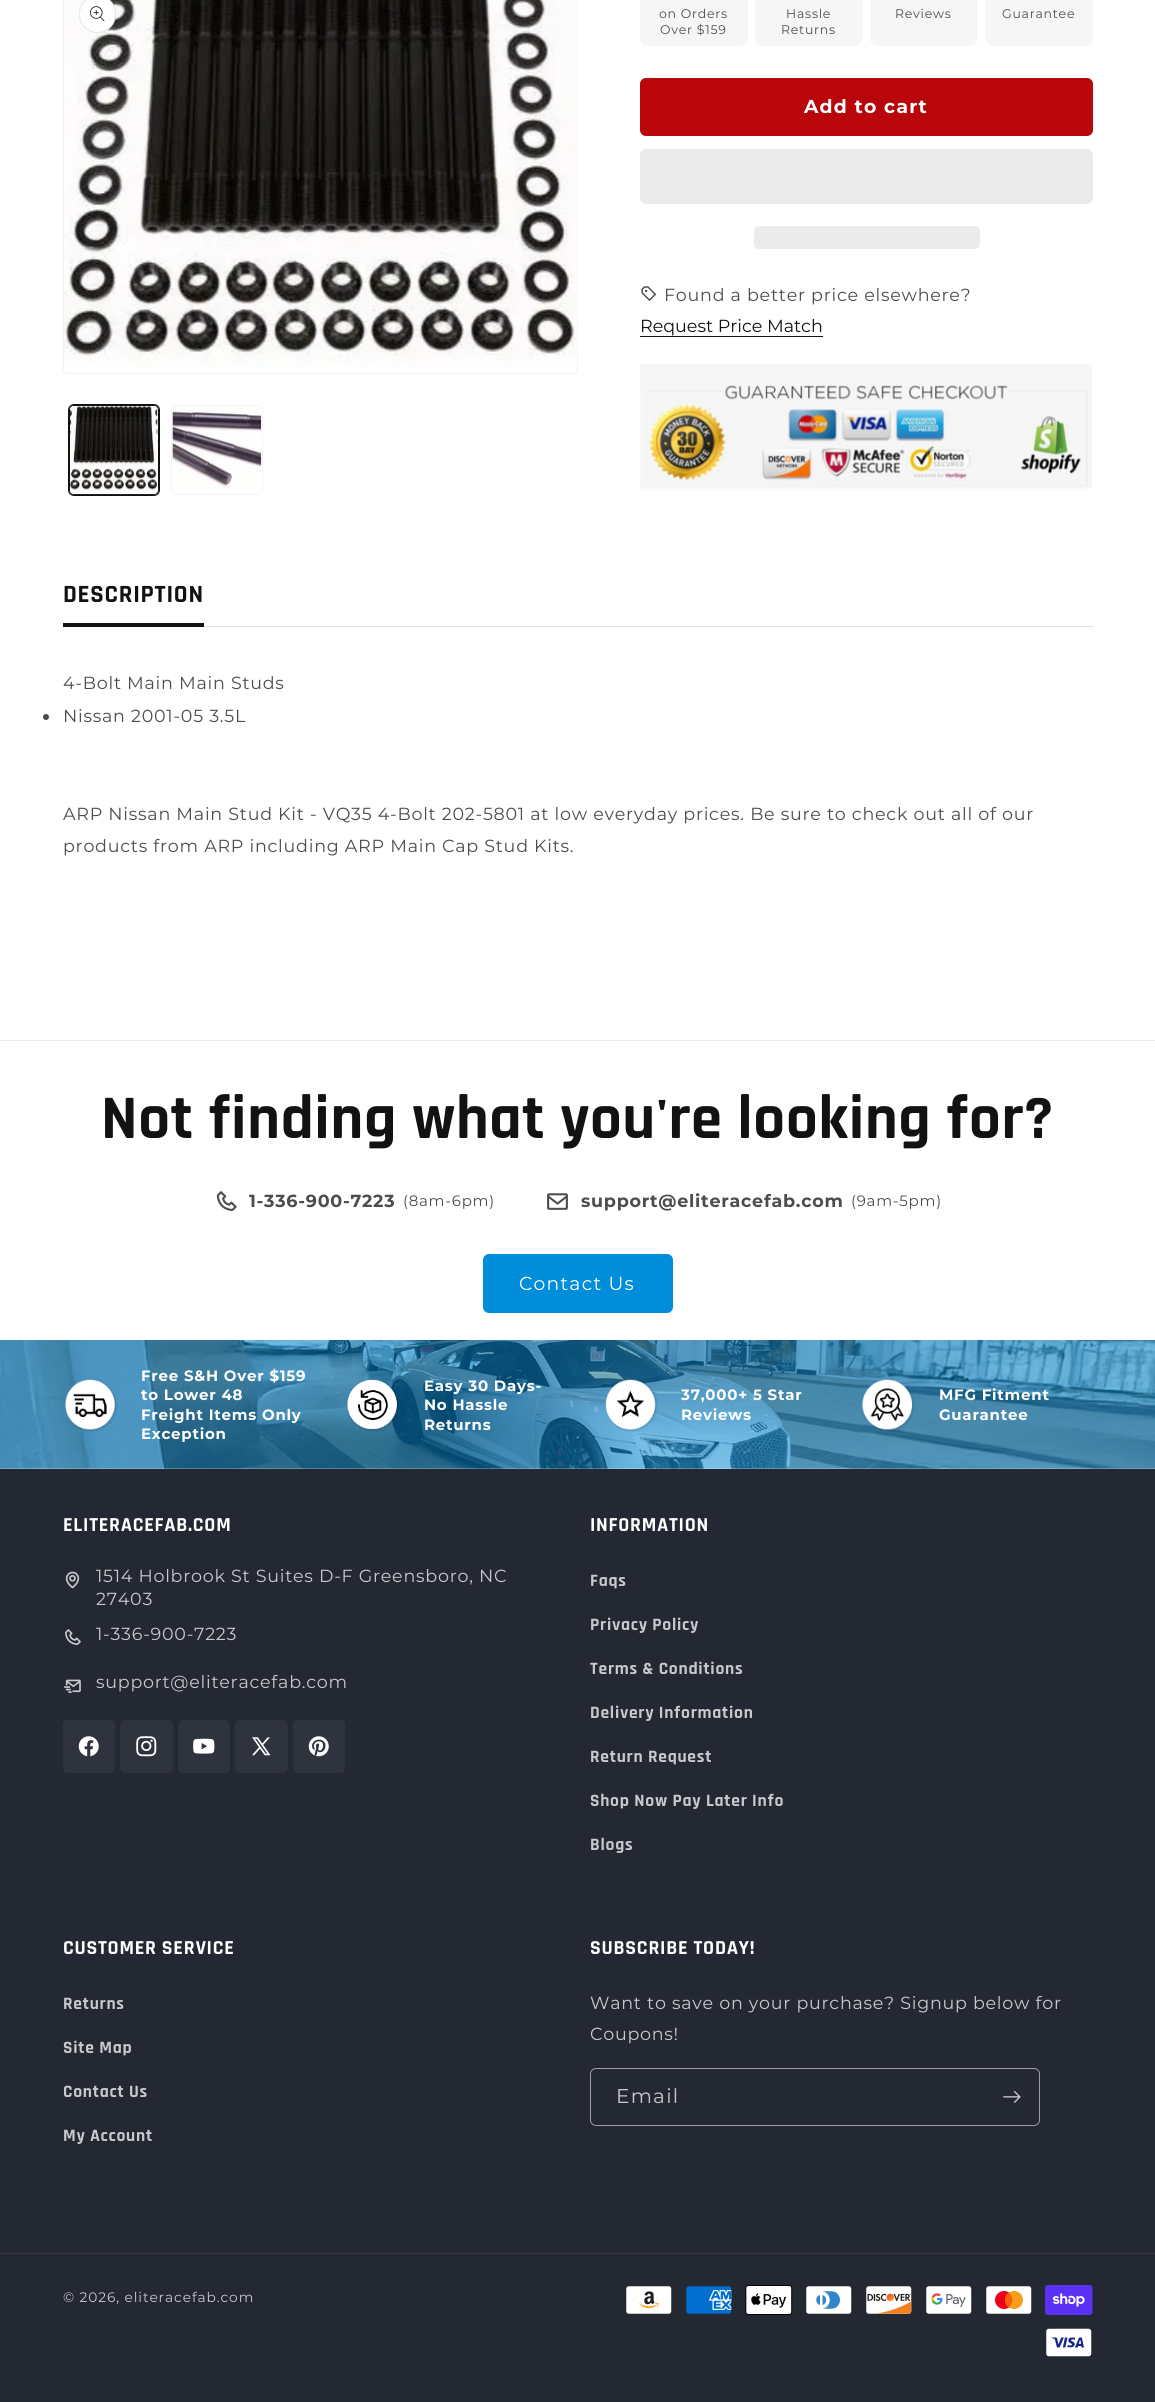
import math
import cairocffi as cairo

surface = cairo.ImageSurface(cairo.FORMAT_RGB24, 1155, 2402)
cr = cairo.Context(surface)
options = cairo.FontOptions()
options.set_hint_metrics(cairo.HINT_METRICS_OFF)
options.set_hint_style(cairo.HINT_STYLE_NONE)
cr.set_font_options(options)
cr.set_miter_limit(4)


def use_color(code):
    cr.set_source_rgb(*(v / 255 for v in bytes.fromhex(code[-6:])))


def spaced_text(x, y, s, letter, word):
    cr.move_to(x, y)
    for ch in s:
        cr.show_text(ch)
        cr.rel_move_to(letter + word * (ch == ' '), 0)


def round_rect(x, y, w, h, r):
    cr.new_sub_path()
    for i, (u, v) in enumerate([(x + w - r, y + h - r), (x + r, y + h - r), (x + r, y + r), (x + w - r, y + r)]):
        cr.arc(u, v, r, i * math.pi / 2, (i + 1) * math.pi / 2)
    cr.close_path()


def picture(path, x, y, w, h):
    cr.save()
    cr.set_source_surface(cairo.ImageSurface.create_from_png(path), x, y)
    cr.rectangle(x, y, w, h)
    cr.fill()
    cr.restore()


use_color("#ffffff")
cr.paint()
round_rect(63.5, -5.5, 514, 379, 4.5)
use_color("#f3f3f3")
cr.set_line_width(1)
cr.stroke()
picture("img2.png", 64, 0, 513, 368)
use_color("#ffffff")
round_rect(79, -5, 37, 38, 18.5)
cr.fill()
round_rect(79.5, -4.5, 36, 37, 18)
cr.set_source_rgba(0.071, 0.071, 0.071, 0.1)
cr.stroke()
picture("img1.png", 90, 6, 15, 16)
round_rect(68.5, 404.5, 91, 91, 5.5)
use_color("#121212")
cr.stroke()
round_rect(69.5, 405.5, 89, 89, 4.5)
cr.stroke()
picture("img3.png", 70, 406, 88, 89)
round_rect(171.5, 405.5, 91, 89, 4.5)
use_color("#f3f3f3")
cr.stroke()
picture("img4.png", 172, 407, 90, 81)
use_color("#f6f6f6")
round_rect(640, -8, 108, 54, 8)
cr.fill()
cr.select_font_face("Montserrat")
cr.set_font_size(12.5)
use_color("#4d4d4d")
spaced_text(659, 18, "on Orders", 0.75, 0)
spaced_text(660, 34, "Over $159", 0.75, 0)
use_color("#f6f6f6")
round_rect(755, -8, 108, 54, 8)
cr.fill()
use_color("#4d4d4d")
spaced_text(786, 18, "Hassle", 0.75, 0)
spaced_text(781, 34, "Returns", 0.75, 0)
use_color("#f6f6f6")
round_rect(870, -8, 108, 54, 8)
cr.fill()
use_color("#4d4d4d")
spaced_text(895, 18, "Reviews", 0.75, 0)
use_color("#f6f6f6")
round_rect(985, -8, 108, 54, 8)
cr.fill()
use_color("#4d4d4d")
spaced_text(1002, 18, "Guarantee", 0.75, 0)
use_color("#b9060b")
round_rect(640, 78, 453, 58, 6)
cr.fill()
cr.select_font_face("Montserrat", cairo.FONT_SLANT_NORMAL, cairo.FONT_WEIGHT_BOLD)
cr.set_font_size(18.75)
use_color("#ffffff")
spaced_text(804, 113, "Add to cart", 1.25, 0)
use_color("#ebebeb")
round_rect(640, 149, 453, 55, 6)
cr.fill()
round_rect(754, 226, 226, 23, 5)
cr.fill()
picture("img5.png", 641, 286, 15, 15)
cr.select_font_face("Montserrat")
cr.set_font_size(17.5)
use_color("#4d4d4d")
spaced_text(664, 301, "Found a better price elsewhere?", 0.75, 0)
use_color("#121212")
cr.move_to(640, 332)
cr.show_text("Request Price Match")
cr.rectangle(640, 336, 183, 1)
cr.fill()
picture("img6.png", 640, 364, 452, 125)
use_color("#dfdfdf")
cr.rectangle(204, 626, 889, 1)
cr.fill()
use_color("#121212")
cr.rectangle(63, 623, 141, 4)
cr.fill()
cr.select_font_face("Rajdhani", cairo.FONT_SLANT_NORMAL, cairo.FONT_WEIGHT_BOLD)
cr.set_font_size(25)
spaced_text(63, 602, "DESCRIPTION", 0.75, 0)
cr.select_font_face("Montserrat")
cr.set_font_size(17.5)
use_color("#4d4d4d")
spaced_text(63, 689, "4-Bolt Main Main Studs", 0.75, 0)
use_color("#484b51")
cr.new_path()
cr.arc(46, 717, 3, 0, 2 * math.pi)
cr.fill()
use_color("#4d4d4d")
spaced_text(63, 722, "Nissan 2001-05 3.5L", 0.75, 0)
spaced_text(63, 820, "ARP Nissan Main Stud Kit - VQ35 4-Bolt 202-5801 at low everyday prices. Be sure to check out all of our", 0.75, 0)
spaced_text(63, 852, "products from ARP including ARP Main Cap Stud Kits.", 0.75, 0)
use_color("#ececec")
cr.rectangle(0, 1040, 1155, 1)
cr.fill()
cr.select_font_face("Rajdhani", cairo.FONT_SLANT_NORMAL, cairo.FONT_WEIGHT_BOLD)
cr.set_font_size(62.5)
use_color("#121212")
spaced_text(101, 1138, "Not finding what you're looking for?", 0.75, 0)
picture("img7.png", 216, 1191, 21, 20)
cr.select_font_face("Montserrat", cairo.FONT_SLANT_NORMAL, cairo.FONT_WEIGHT_BOLD)
cr.set_font_size(17.5)
use_color("#4d4d4d")
spaced_text(249, 1207, "1-336-900-7223", 0.75, 0)
cr.select_font_face("Montserrat")
cr.set_font_size(15)
spaced_text(403, 1206, "(8am-6pm)", 0.75, 0)
picture("img8.png", 547, 1193, 21, 17)
cr.select_font_face("Montserrat", cairo.FONT_SLANT_NORMAL, cairo.FONT_WEIGHT_BOLD)
cr.set_font_size(17.5)
spaced_text(581, 1207, "support@eliteracefab.com", 0.75, 0)
cr.select_font_face("Montserrat")
cr.set_font_size(15)
spaced_text(851, 1206, "(9am-5pm)", 0.75, 0)
use_color("#008dd9")
round_rect(483, 1254, 190, 59, 6)
cr.fill()
cr.set_font_size(18.75)
use_color("#ffffff")
spaced_text(519, 1290, "Contact Us", 1.25, 0)
picture("img9.png", 0, 1340, 1155, 129)
picture("img10.png", 64, 1379, 53, 53)
cr.select_font_face("Montserrat", cairo.FONT_SLANT_NORMAL, cairo.FONT_WEIGHT_BOLD)
cr.set_font_size(15)
spaced_text(141, 1381, "Free S&H Over $159", 0.75, 0)
spaced_text(141, 1400, "to Lower 48", 0.75, 0)
spaced_text(141, 1420, "Freight Items Only", 0.75, 0)
spaced_text(141, 1439, "Exception", 0.75, 0)
picture("img11.png", 347, 1379, 52, 53)
spaced_text(424, 1391, "Easy 30 Days-", 0.75, 0)
spaced_text(424, 1410, "No Hassle", 0.75, 0)
spaced_text(424, 1430, "Returns", 0.75, 0)
picture("img12.png", 605, 1379, 53, 53)
spaced_text(681, 1400, "37,000+ 5 Star", 0.75, 0)
spaced_text(681, 1420, "Reviews", 0.75, 0)
picture("img13.png", 861, 1379, 54, 53)
spaced_text(939, 1400, "MFG Fitment", 0.75, 0)
spaced_text(939, 1420, "Guarantee", 0.75, 0)
use_color("#242833")
cr.rectangle(0, 1469, 1155, 933)
cr.fill()
cr.select_font_face("Rajdhani", cairo.FONT_SLANT_NORMAL, cairo.FONT_WEIGHT_BOLD)
cr.set_font_size(20)
use_color("#ffffff")
spaced_text(63, 1531, "ELITERACEFAB.COM", 0.75, 0)
picture("img14.png", 65, 1571, 15, 18)
cr.select_font_face("Montserrat")
cr.set_font_size(17.5)
use_color("#c8c9cc")
spaced_text(96, 1582, "1514 Holbrook St Suites D-F Greensboro, NC", 0.75, 0)
spaced_text(96, 1605, "27403", 0.75, 0)
picture("img15.png", 65, 1629, 16, 16)
spaced_text(96, 1640, "1-336-900-7223", 0.75, 0)
picture("img16.png", 64, 1679, 17, 14)
spaced_text(96, 1688, "support@eliteracefab.com", 0.75, 0)
use_color("#2f333d")
round_rect(63, 1720, 52, 53, 5)
cr.fill()
picture("img17.png", 78, 1736, 21, 21)
round_rect(120, 1720, 53, 53, 5)
cr.fill()
picture("img18.png", 136, 1736, 21, 21)
round_rect(178, 1720, 52, 53, 5)
cr.fill()
picture("img19.png", 193, 1738, 22, 16)
round_rect(235, 1720, 53, 53, 5)
cr.fill()
picture("img20.png", 252, 1737, 19, 19)
round_rect(293, 1720, 52, 53, 5)
cr.fill()
picture("img21.png", 308, 1736, 21, 21)
cr.select_font_face("Rajdhani", cairo.FONT_SLANT_NORMAL, cairo.FONT_WEIGHT_BOLD)
cr.set_font_size(20)
use_color("#ffffff")
spaced_text(590, 1531, "INFORMATION", 0.75, 0)
cr.set_font_size(17.5)
use_color("#c8c9cc")
spaced_text(590, 1586, "Faqs", 0.75, 0)
spaced_text(590, 1630, "Privacy Policy", 0.75, 0)
spaced_text(590, 1674, "Terms & Conditions", 0.75, 0)
spaced_text(590, 1718, "Delivery Information", 0.75, 0)
spaced_text(590, 1762, "Return Request", 0.75, 0)
spaced_text(590, 1806, "Shop Now Pay Later Info", 0.75, 0)
spaced_text(590, 1850, "Blogs", 0.75, 0)
cr.set_font_size(20)
use_color("#ffffff")
spaced_text(63, 1954, "CUSTOMER SERVICE", 0.75, 0)
cr.set_font_size(17.5)
use_color("#c8c9cc")
spaced_text(63, 2009, "Returns", 0.75, 0)
spaced_text(63, 2053, "Site Map", 0.75, 0)
spaced_text(63, 2097, "Contact Us", 0.75, 0)
spaced_text(63, 2141, "My Account", 0.75, 0)
cr.set_font_size(20)
use_color("#ffffff")
spaced_text(590, 1954, "SUBSCRIBE TODAY!", 0.75, 0)
cr.select_font_face("Montserrat")
cr.set_font_size(17.5)
use_color("#c8c9cc")
spaced_text(590, 2009, "Want to save on your purchase? Signup below for", 0.75, 0)
spaced_text(590, 2040, "Coupons!", 0.75, 0)
round_rect(590.5, 2068.5, 449, 57, 5.5)
use_color("#9c9ea3")
cr.stroke()
cr.set_font_size(20)
use_color("#c8c9cc")
spaced_text(616, 2103, "Email", 1.25, 0)
picture("img22.png", 1003, 2090, 18, 13)
use_color("#363943")
cr.rectangle(0, 2253, 1155, 1)
cr.fill()
cr.set_font_size(13.75)
use_color("#c8c9cc")
spaced_text(63, 2302, "© 2026, eliteracefab.com", 0.9, 0)
picture("img23.png", 626, 2286, 46, 28)
picture("img24.png", 686, 2286, 46, 28)
picture("img25.png", 745, 2285, 48, 30)
picture("img26.png", 806, 2286, 46, 28)
picture("img27.png", 866, 2286, 46, 28)
picture("img28.png", 926, 2286, 46, 28)
picture("img29.png", 986, 2286, 46, 28)
picture("img30.png", 1045, 2285, 48, 30)
picture("img31.png", 1046, 2328, 46, 29)
surface.write_to_png("result.png")
